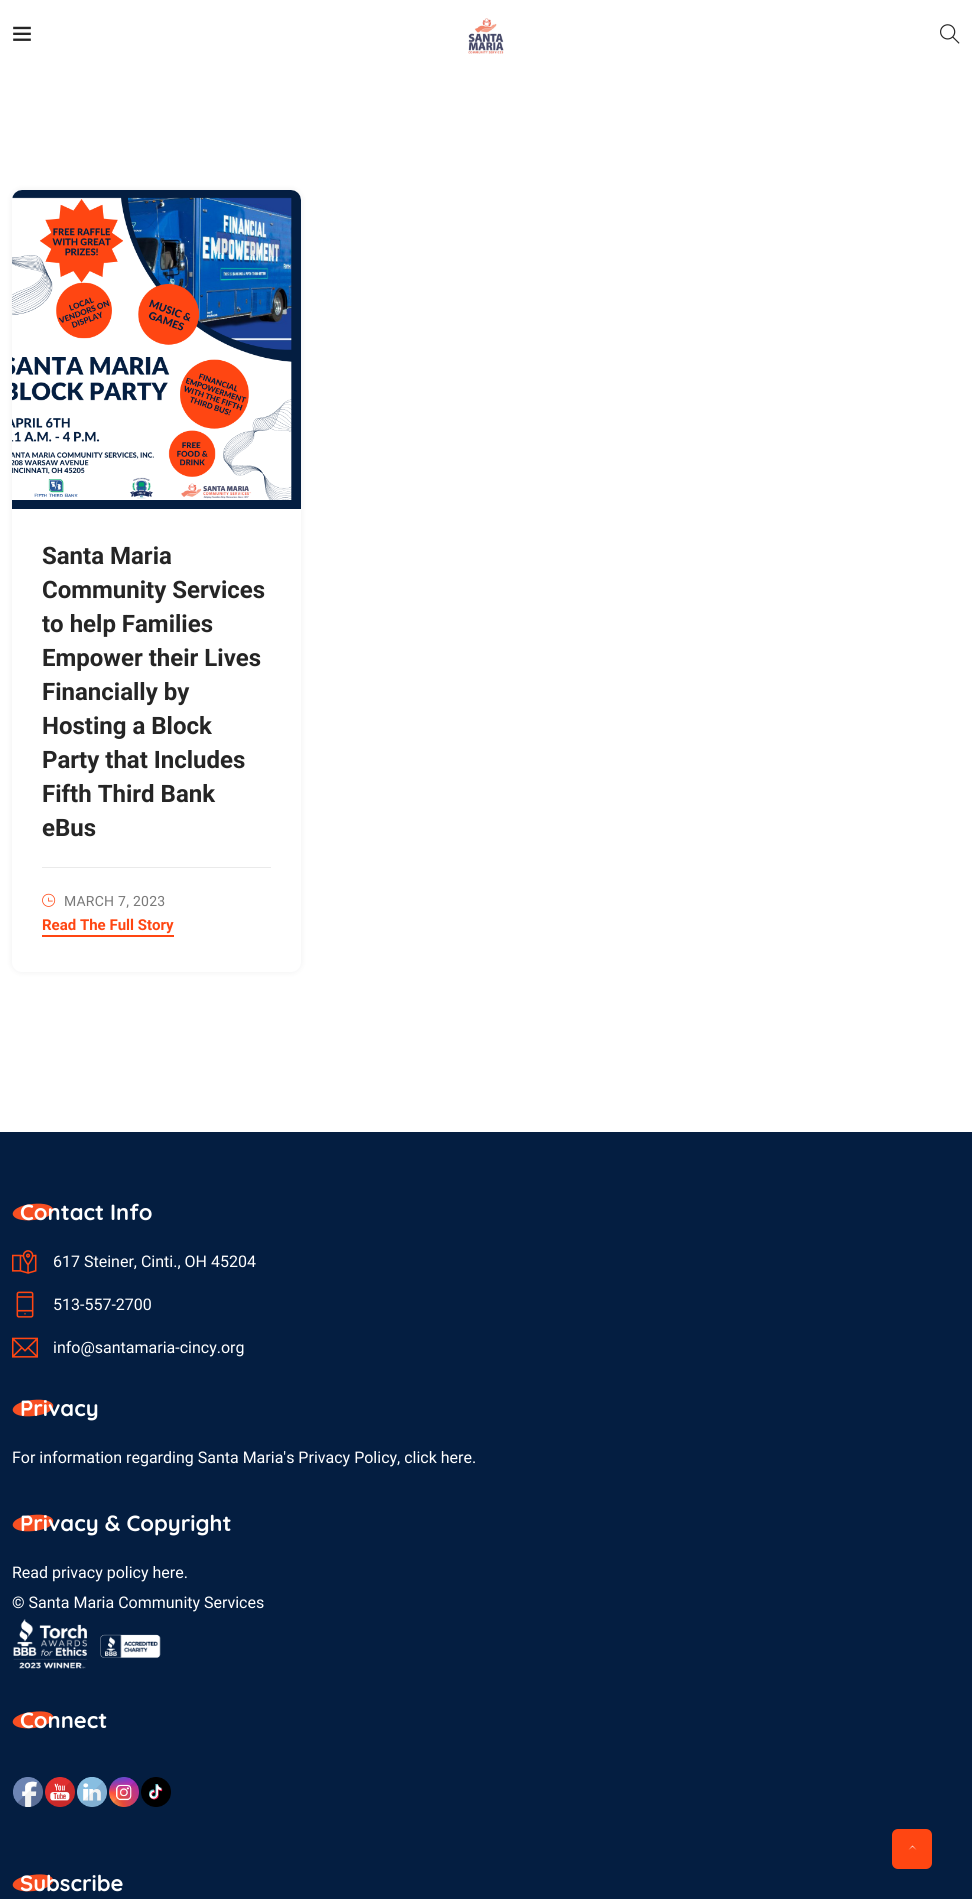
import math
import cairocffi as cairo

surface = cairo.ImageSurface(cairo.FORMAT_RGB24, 972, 1899)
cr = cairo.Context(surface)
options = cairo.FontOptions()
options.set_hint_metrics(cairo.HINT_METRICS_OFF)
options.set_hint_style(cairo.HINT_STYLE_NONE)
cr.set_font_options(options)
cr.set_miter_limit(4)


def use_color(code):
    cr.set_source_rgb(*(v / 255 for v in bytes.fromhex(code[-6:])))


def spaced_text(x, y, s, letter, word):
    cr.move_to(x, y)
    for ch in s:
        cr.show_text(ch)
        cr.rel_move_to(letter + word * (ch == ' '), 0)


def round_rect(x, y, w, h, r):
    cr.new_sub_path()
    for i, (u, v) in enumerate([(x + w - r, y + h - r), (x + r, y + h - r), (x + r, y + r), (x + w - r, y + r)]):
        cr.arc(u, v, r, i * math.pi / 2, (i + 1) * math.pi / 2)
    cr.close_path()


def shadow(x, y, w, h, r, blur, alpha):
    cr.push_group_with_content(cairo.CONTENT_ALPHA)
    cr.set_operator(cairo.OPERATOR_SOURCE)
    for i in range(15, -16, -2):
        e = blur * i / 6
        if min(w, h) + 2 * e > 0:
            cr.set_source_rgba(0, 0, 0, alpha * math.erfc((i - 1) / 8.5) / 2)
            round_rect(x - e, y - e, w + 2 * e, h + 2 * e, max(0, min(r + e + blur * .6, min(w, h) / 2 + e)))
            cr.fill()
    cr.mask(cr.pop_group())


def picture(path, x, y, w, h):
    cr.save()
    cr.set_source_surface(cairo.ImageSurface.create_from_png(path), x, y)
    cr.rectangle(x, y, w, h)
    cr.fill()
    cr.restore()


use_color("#ffffff")
cr.paint()
picture("img1.png", 13, 26, 18, 15)
picture("img2.png", 468, 18, 36, 36)
picture("img3.png", 940, 24, 20, 20)
use_color("#2b343b")
shadow(12, 190, 289, 782, 10, 3.5, 0.08)
use_color("#ffffff")
round_rect(12, 190, 289, 782, 10)
cr.fill()
picture("img4.png", 12, 190, 289, 319)
use_color("#eaeaea")
cr.rectangle(42, 867, 229, 1)
cr.fill()
cr.select_font_face("Roboto", cairo.FONT_SLANT_NORMAL, cairo.FONT_WEIGHT_BOLD)
cr.set_font_size(24)
use_color("#252525")
cr.move_to(42, 564)
cr.show_text("Santa Maria")
cr.move_to(42, 598)
cr.show_text("Community Services")
cr.move_to(42, 632)
cr.show_text("to help Families")
cr.move_to(42, 666)
cr.show_text("Empower their Lives")
cr.move_to(42, 700)
cr.show_text("Financially by")
cr.move_to(42, 734)
cr.show_text("Hosting a Block")
cr.move_to(42, 768)
cr.show_text("Party that Includes")
cr.move_to(42, 802)
cr.show_text("Fifth Third Bank")
cr.move_to(42, 836)
cr.show_text("eBus")
picture("img5.png", 42, 893, 14, 14)
cr.select_font_face("Roboto")
cr.set_font_size(14)
use_color("#797979")
spaced_text(64, 906, "MARCH 7, 2023", 0.25, 0)
use_color("#ff4612")
cr.rectangle(42, 935, 132, 2)
cr.fill()
cr.select_font_face("Roboto", cairo.FONT_SLANT_NORMAL, cairo.FONT_WEIGHT_BOLD)
cr.set_font_size(15)
cr.move_to(42, 930)
cr.show_text("Read The Full Story")
use_color("#041e41")
cr.rectangle(0, 1132, 972, 767)
cr.fill()
use_color("#f74f22")
cr.new_path()
cr.move_to(32, 1204)
cr.curve_to(59, 1201, 61, 1217, 34, 1220)
cr.curve_to(7, 1223, 5, 1207, 32, 1204)
cr.close_path()
cr.fill()
cr.select_font_face("Quicksand Light")
cr.set_font_size(22)
use_color("#ffffff")
cr.move_to(20, 1220)
cr.show_text("Contact Info")
picture("img6.png", 12, 1250, 25, 24)
cr.select_font_face("Roboto")
cr.set_font_size(16)
cr.move_to(53, 1267)
cr.show_text("617 Steiner, Cinti., OH 45204")
picture("img7.png", 16, 1291, 18, 27)
cr.move_to(53, 1310)
cr.show_text("513-557-2700")
picture("img8.png", 12, 1337, 26, 21)
cr.move_to(53, 1353)
cr.show_text("info@santamaria-cincy.org")
use_color("#f74f22")
cr.new_path()
cr.move_to(32, 1400)
cr.curve_to(59, 1397, 61, 1413, 34, 1416)
cr.curve_to(7, 1419, 5, 1403, 32, 1400)
cr.close_path()
cr.fill()
cr.select_font_face("Quicksand Light")
cr.set_font_size(22)
use_color("#ffffff")
cr.move_to(20, 1416)
cr.show_text("Privacy")
cr.select_font_face("Roboto")
cr.set_font_size(16)
cr.move_to(12, 1463)
cr.show_text("For information regarding Santa Maria's Privacy Policy, click here.")
use_color("#f74f22")
cr.new_path()
cr.move_to(32, 1515)
cr.curve_to(59, 1512, 61, 1528, 34, 1531)
cr.curve_to(7, 1534, 5, 1518, 32, 1515)
cr.close_path()
cr.fill()
cr.select_font_face("Quicksand Light")
cr.set_font_size(22)
use_color("#ffffff")
cr.move_to(20, 1531)
cr.show_text("Privacy & Copyright")
cr.select_font_face("Roboto")
cr.set_font_size(16)
cr.move_to(12, 1578)
cr.show_text("Read privacy policy here.")
cr.move_to(12, 1608)
cr.show_text("© Santa Maria Community Services")
picture("img9.png", 13, 1619, 148, 50)
use_color("#f74f22")
cr.new_path()
cr.move_to(32, 1712)
cr.curve_to(59, 1708, 61, 1724, 34, 1728)
cr.curve_to(7, 1731, 5, 1715, 32, 1712)
cr.close_path()
cr.fill()
cr.select_font_face("Quicksand Light")
cr.set_font_size(22)
use_color("#ffffff")
cr.move_to(20, 1728)
cr.show_text("Connect")
picture("img10.png", 13, 1777, 30, 30)
picture("img11.png", 45, 1777, 30, 30)
picture("img12.png", 77, 1777, 30, 30)
picture("img13.png", 109, 1777, 30, 30)
picture("img14.png", 141, 1777, 30, 30)
use_color("#f74f22")
cr.new_path()
cr.move_to(32, 1875)
cr.curve_to(59, 1871, 61, 1887, 34, 1891)
cr.curve_to(7, 1894, 5, 1878, 32, 1875)
cr.close_path()
cr.fill()
use_color("#ffffff")
cr.move_to(20, 1891)
cr.show_text("Subscribe")
use_color("#ff4612")
round_rect(892, 1829, 40, 40, 6)
cr.fill()
use_color("#ffffff")
cr.new_path()
cr.move_to(916.5, 1850)
cr.line_to(912.5, 1846.5)
cr.line_to(908.5, 1850)
cr.line_to(912.5, 1845.5)
cr.close_path()
cr.fill()
surface.write_to_png("result.png")
